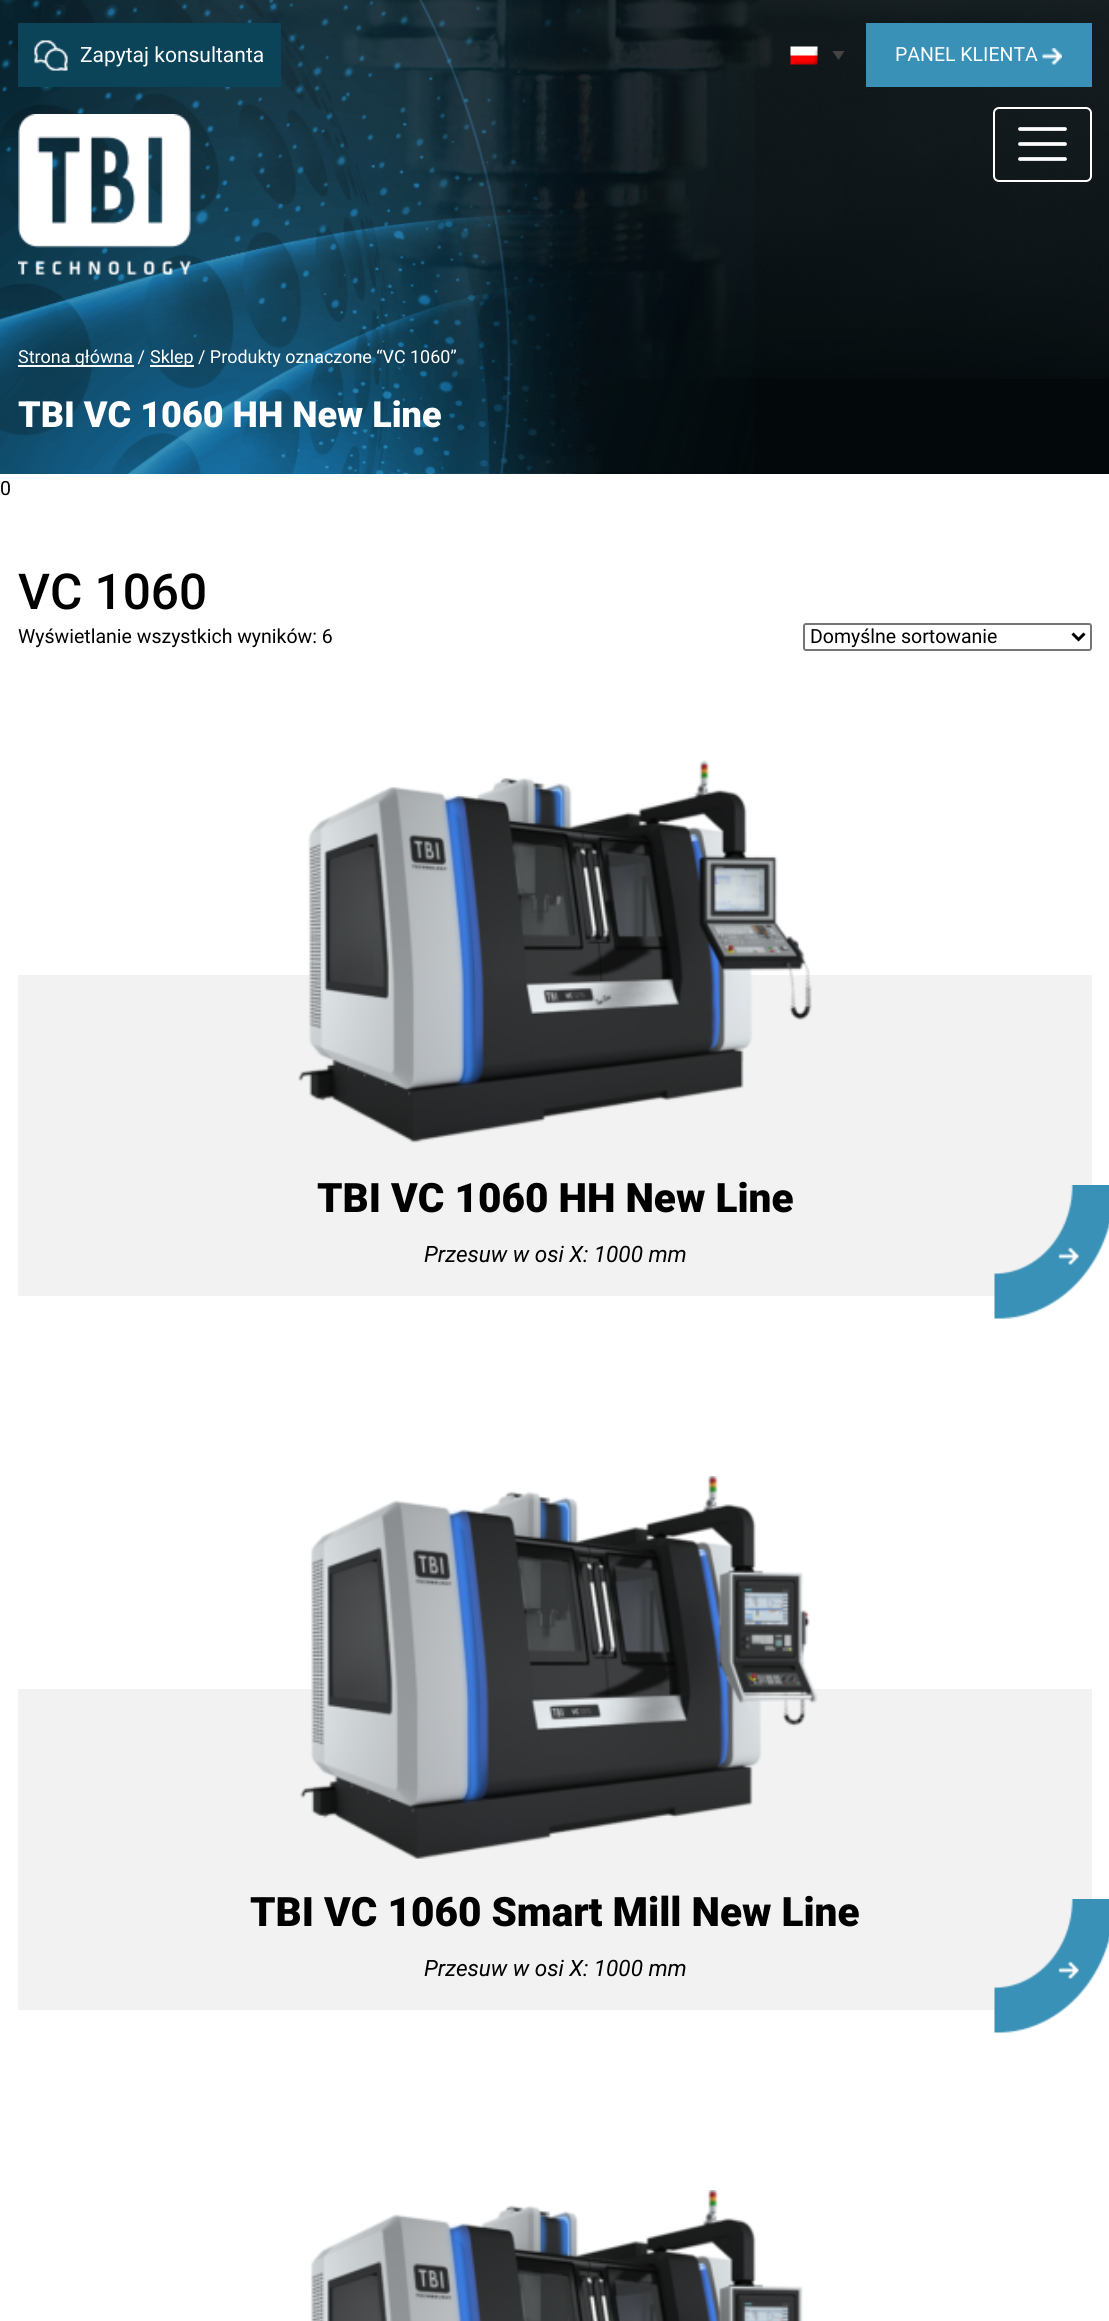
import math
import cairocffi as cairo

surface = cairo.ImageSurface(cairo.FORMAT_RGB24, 1109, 2321)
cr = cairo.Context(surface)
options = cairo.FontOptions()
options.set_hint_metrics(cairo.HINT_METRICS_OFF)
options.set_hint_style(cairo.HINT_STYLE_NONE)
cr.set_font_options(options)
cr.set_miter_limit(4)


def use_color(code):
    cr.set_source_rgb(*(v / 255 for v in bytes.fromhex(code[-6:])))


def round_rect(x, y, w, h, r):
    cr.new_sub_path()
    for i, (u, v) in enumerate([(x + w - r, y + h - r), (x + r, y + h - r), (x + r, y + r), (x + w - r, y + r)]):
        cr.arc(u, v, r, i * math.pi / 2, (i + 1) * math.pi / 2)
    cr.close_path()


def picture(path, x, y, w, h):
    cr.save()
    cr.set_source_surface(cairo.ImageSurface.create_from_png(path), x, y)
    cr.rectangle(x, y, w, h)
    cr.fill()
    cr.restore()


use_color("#ffffff")
cr.paint()
use_color("#03090b")
cr.rectangle(350, 0, 759, 474)
cr.fill()
picture("img5.png", 0, 0, 755, 474)
picture("img6.png", 41, 0, 1068, 379)
use_color("#0b4359")
cr.rectangle(18, 23, 263, 64)
cr.fill()
picture("img1.png", 34, 40, 34, 31)
cr.select_font_face("Roboto")
cr.set_font_size(21)
use_color("#ffffff")
cr.move_to(80, 62)
cr.show_text("Zapytaj konsultanta")
picture("img2.png", 790, 46, 28, 19)
use_color("#444444")
cr.new_path()
cr.move_to(832.5, 51)
cr.line_to(844.5, 51)
cr.line_to(838.5, 60)
cr.close_path()
cr.fill()
use_color("#3991b7")
cr.rectangle(866, 23, 226, 64)
cr.fill()
cr.set_font_size(19.5)
use_color("#ffffff")
cr.move_to(895, 61)
cr.show_text("PANEL KLIENTA")
picture("img3.png", 1042, 48, 20, 17)
picture("img4.png", 18, 114, 173, 161)
round_rect(994, 108, 97, 73, 5)
cr.stroke()
cr.new_path()
cr.move_to(1020, 129)
cr.line_to(1065, 129)
cr.move_to(1020, 144)
cr.line_to(1065, 144)
cr.move_to(1020, 159)
cr.line_to(1065, 159)
cr.set_line_width(3.8)
cr.set_line_cap(cairo.LINE_CAP_ROUND)
cr.stroke()
cr.rectangle(18, 365, 116, 2)
cr.fill()
cr.set_font_size(17.9)
cr.move_to(18, 363)
cr.show_text("Strona główna /")
cr.rectangle(150, 365, 44, 2)
cr.fill()
cr.move_to(150, 363)
cr.show_text("Sklep / Produkty oznaczone “VC 1060”")
cr.select_font_face("Roboto Black")
cr.set_font_size(36)
cr.move_to(18, 427)
cr.show_text("TBI VC 1060 HH New Line")
cr.select_font_face("Roboto")
cr.set_font_size(19.5)
use_color("#000000")
cr.move_to(0, 495)
cr.show_text("0")
cr.select_font_face("Roboto Medium")
cr.set_font_size(49.5)
cr.move_to(18, 609)
cr.show_text("VC 1060")
cr.select_font_face("Roboto")
cr.set_font_size(19.5)
cr.move_to(18, 643)
cr.show_text("Wyświetlanie wszystkich wyników: 6")
round_rect(804, 624, 287, 26, 2)
use_color("#767676")
cr.set_line_width(2)
cr.set_line_cap(cairo.LINE_CAP_BUTT)
cr.stroke()
cr.new_path()
cr.move_to(1072.5, 633.5)
cr.line_to(1078.5, 639.5)
cr.line_to(1084.5, 633.5)
use_color("#000000")
cr.set_line_width(3)
cr.stroke()
cr.move_to(810, 643)
cr.show_text("Domyślne sortowanie")
use_color("#f2f2f2")
cr.new_path()
cr.move_to(18, 975)
cr.line_to(1092, 975)
cr.line_to(1092, 1221)
cr.curve_to(1092, 1262.5, 1058.5, 1296, 1017, 1296)
cr.line_to(18, 1296)
cr.close_path()
cr.fill()
picture("img7.png", 298, 760, 514, 383)
cr.select_font_face("Roboto Black")
cr.set_font_size(40.5)
use_color("#000000")
cr.move_to(317, 1212)
cr.show_text("TBI VC 1060 HH New Line")
picture("img8.png", 994, 1185, 115, 134)
cr.select_font_face("Roboto", cairo.FONT_SLANT_ITALIC)
cr.set_font_size(22.5)
cr.move_to(424, 1262)
cr.show_text("Przesuw w osi X: 1000 mm")
use_color("#f2f2f2")
cr.new_path()
cr.move_to(18, 1689)
cr.line_to(1092, 1689)
cr.line_to(1092, 1935)
cr.curve_to(1092, 1976.5, 1058.5, 2010, 1017, 2010)
cr.line_to(18, 2010)
cr.close_path()
cr.fill()
picture("img9.png", 300, 1476, 518, 383)
cr.select_font_face("Roboto Black")
cr.set_font_size(40.5)
use_color("#000000")
cr.move_to(250, 1926)
cr.show_text("TBI VC 1060 Smart Mill New Line")
picture("img8.png", 994, 1899, 115, 134)
cr.select_font_face("Roboto", cairo.FONT_SLANT_ITALIC)
cr.set_font_size(22.5)
cr.move_to(424, 1976)
cr.show_text("Przesuw w osi X: 1000 mm")
picture("img10.png", 310, 2190, 493, 131)
surface.write_to_png("result.png")
